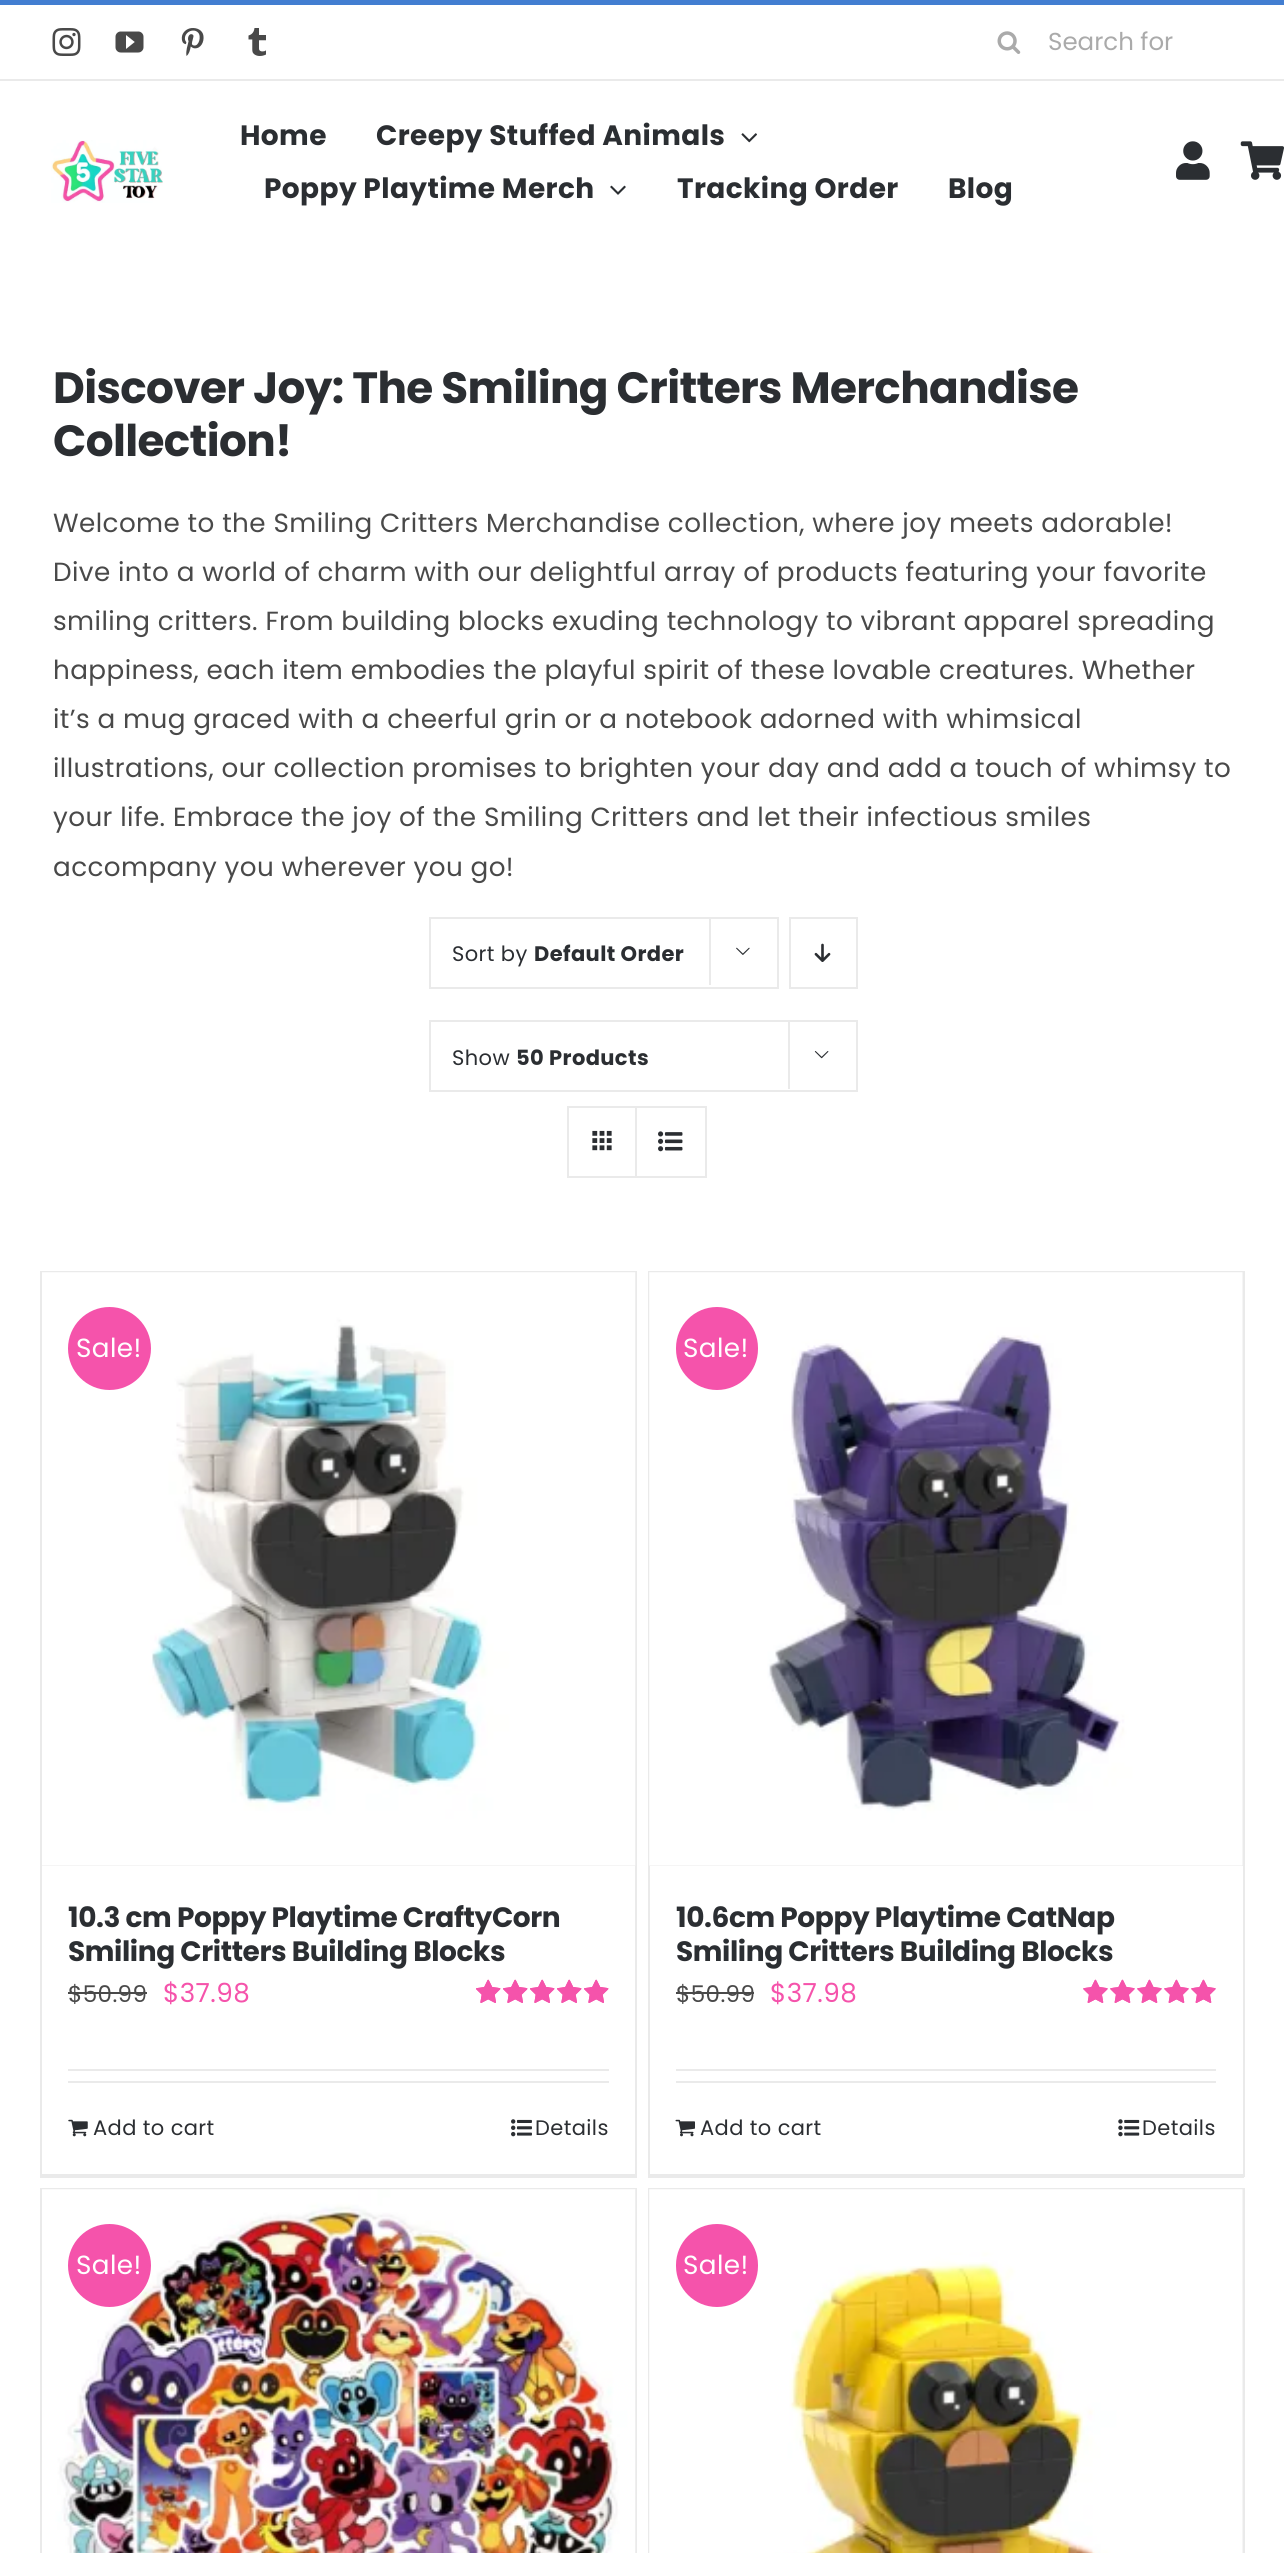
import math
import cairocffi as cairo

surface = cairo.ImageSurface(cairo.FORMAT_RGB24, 1284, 2553)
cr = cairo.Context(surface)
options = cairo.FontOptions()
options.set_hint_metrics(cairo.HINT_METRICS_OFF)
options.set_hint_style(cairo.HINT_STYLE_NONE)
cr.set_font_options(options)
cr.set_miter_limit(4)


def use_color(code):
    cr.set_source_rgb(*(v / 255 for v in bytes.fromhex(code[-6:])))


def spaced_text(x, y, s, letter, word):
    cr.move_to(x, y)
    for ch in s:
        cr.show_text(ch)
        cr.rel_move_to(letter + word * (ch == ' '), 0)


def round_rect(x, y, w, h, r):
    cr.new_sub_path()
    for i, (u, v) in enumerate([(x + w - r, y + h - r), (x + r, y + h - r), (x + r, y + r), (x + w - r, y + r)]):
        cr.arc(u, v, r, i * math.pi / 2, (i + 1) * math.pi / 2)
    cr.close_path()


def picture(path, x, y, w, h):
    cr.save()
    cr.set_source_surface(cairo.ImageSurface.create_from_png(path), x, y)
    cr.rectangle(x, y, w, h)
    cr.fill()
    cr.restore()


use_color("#ffffff")
cr.paint()
use_color("#427ed1")
cr.rectangle(0, 0, 1284, 5)
cr.fill()
picture("img1.png", 52, 28, 29, 28)
picture("img2.png", 115, 31, 29, 22)
picture("img3.png", 181, 28, 23, 28)
picture("img4.png", 248, 28, 18, 28)
picture("img5.png", 997, 31, 24, 23)
cr.select_font_face("Poppins")
cr.set_font_size(24.5)
use_color("#aaaaaa")
cr.move_to(1048, 50)
cr.show_text("Search for")
use_color("#eaeaea")
cr.rectangle(0, 79, 1284, 2)
cr.fill()
picture("img6.png", 51, 140, 112, 63)
cr.select_font_face("Poppins", cairo.FONT_SLANT_NORMAL, cairo.FONT_WEIGHT_BOLD)
cr.set_font_size(28)
use_color("#2b2e32")
spaced_text(240, 145, "Home", 0.4, 0)
spaced_text(376, 145, "Creepy Stuffed Animals", 0.4, 0)
picture("img7.png", 741, 133, 16, 10)
spaced_text(264, 198, "Poppy Playtime Merch", 0.4, 0)
picture("img8.png", 610, 185, 16, 10)
spaced_text(677, 198, "Tracking Order", 0.4, 0)
spaced_text(948, 198, "Blog", 0.4, 0)
picture("img9.png", 1176, 141, 34, 39)
picture("img10.png", 1240, 141, 44, 39)
cr.set_font_size(43.75)
spaced_text(53, 403, "Discover Joy: The Smiling Critters Merchandise", -0.65, 0)
spaced_text(53, 456, "Collection!", -0.65, 0)
cr.select_font_face("Poppins")
cr.set_font_size(26.25)
use_color("#494949")
spaced_text(53, 532, "Welcome to the Smiling Critters Merchandise collection, where joy meets adorable!", 0.4, 0)
spaced_text(53, 581, "Dive into a world of charm with our delightful array of products featuring your favorite", 0.4, 0)
spaced_text(53, 630, "smiling critters. From building blocks exuding technology to vibrant apparel spreading", 0.4, 0)
spaced_text(53, 679, "happiness, each item embodies the playful spirit of these lovable creatures. Whether", 0.4, 0)
spaced_text(53, 728, "it’s a mug graced with a cheerful grin or a notebook adorned with whimsical", 0.4, 0)
spaced_text(53, 777, "illustrations, our collection promises to brighten your day and add a touch of whimsy to", 0.4, 0)
spaced_text(53, 826, "your life. Embrace the joy of the Smiling Critters and let their infectious smiles", 0.4, 0)
spaced_text(53, 876, "accompany you wherever you go!", 0.4, 0)
cr.rectangle(430, 918, 348, 70)
use_color("#eaeaea")
cr.stroke()
cr.set_font_size(21)
use_color("#2b2e32")
spaced_text(452, 961, "Sort by", 0.4, 0)
cr.select_font_face("Poppins", cairo.FONT_SLANT_NORMAL, cairo.FONT_WEIGHT_BOLD)
spaced_text(534, 961, "Default Order", 0.4, 0)
use_color("#eaeaea")
cr.rectangle(709, 917, 2, 68)
cr.fill()
picture("img11.png", 736, 947, 14, 8)
cr.rectangle(790, 918, 67, 70)
cr.stroke()
picture("img12.png", 814, 943, 17, 19)
cr.rectangle(430, 1021, 427, 70)
cr.stroke()
cr.select_font_face("Poppins")
use_color("#2b2e32")
spaced_text(452, 1065, "Show", 0.4, 0)
cr.select_font_face("Poppins", cairo.FONT_SLANT_NORMAL, cairo.FONT_WEIGHT_BOLD)
spaced_text(516, 1065, "50 Products", 0.4, 0)
use_color("#eaeaea")
cr.rectangle(788, 1020, 2, 69)
cr.fill()
picture("img13.png", 814, 1051, 15, 8)
cr.rectangle(568, 1107, 138, 70)
cr.stroke()
cr.rectangle(635, 1108, 2, 68)
cr.fill()
picture("img14.png", 592, 1130, 20, 21)
picture("img15.png", 658, 1131, 25, 21)
cr.rectangle(40, 1271, 597, 1)
cr.fill()
cr.rectangle(635, 1271, 2, 906)
cr.fill()
cr.rectangle(40, 2174, 597, 4)
cr.fill()
cr.rectangle(40, 1271, 2, 906)
cr.fill()
cr.rectangle(42, 1272, 593, 594)
cr.fill()
picture("img16.png", 42, 1272, 594, 594)
use_color("#f553ab")
cr.arc(109.5, 1348.5, 41.5, 0, 2 * math.pi)
cr.fill()
cr.select_font_face("Poppins")
cr.set_font_size(26.25)
use_color("#ffffff")
spaced_text(76, 1357, "Sale!", 0.4, 0)
cr.select_font_face("Poppins", cairo.FONT_SLANT_NORMAL, cairo.FONT_WEIGHT_BOLD)
cr.set_font_size(28)
use_color("#2b2e32")
spaced_text(68, 1927, "10.3 cm Poppy Playtime CraftyCorn", -0.4, 0)
spaced_text(68, 1961, "Smiling Critters Building Blocks", -0.4, 0)
cr.select_font_face("Poppins")
cr.set_font_size(23)
use_color("#494949")
spaced_text(68, 2002, "$50.99", 0.4, 0)
cr.rectangle(68, 1992, 79, 2)
cr.fill()
cr.set_font_size(26.25)
use_color("#f553ab")
spaced_text(163, 2002, "$37.98", 0.4, 0)
picture("img17.png", 476, 1979, 133, 24)
picture("img18.png", 476, 1979, 133, 24)
use_color("#eaeaea")
cr.rectangle(68, 2069, 541, 2)
cr.fill()
cr.rectangle(68, 2081, 541, 2)
cr.fill()
picture("img19.png", 68, 2119, 20, 18)
cr.set_font_size(21)
use_color("#2b2e32")
spaced_text(93, 2135, "Add to cart", 0.4, 0)
picture("img20.png", 511, 2119, 21, 18)
spaced_text(535, 2135, "Details", 0.4, 0)
use_color("#eaeaea")
cr.rectangle(648, 1271, 596, 1)
cr.fill()
cr.rectangle(1243, 1271, 2, 906)
cr.fill()
cr.rectangle(648, 2174, 596, 4)
cr.fill()
cr.rectangle(648, 1271, 2, 906)
cr.fill()
cr.rectangle(650, 1272, 593, 594)
cr.fill()
picture("img21.png", 649, 1272, 594, 594)
use_color("#f553ab")
round_rect(676, 1307, 82, 83, 41)
cr.fill()
cr.set_font_size(26.25)
use_color("#ffffff")
spaced_text(683, 1357, "Sale!", 0.4, 0)
cr.select_font_face("Poppins", cairo.FONT_SLANT_NORMAL, cairo.FONT_WEIGHT_BOLD)
cr.set_font_size(28)
use_color("#2b2e32")
spaced_text(676, 1927, "10.6cm Poppy Playtime CatNap", -0.4, 0)
spaced_text(676, 1961, "Smiling Critters Building Blocks", -0.4, 0)
cr.select_font_face("Poppins")
cr.set_font_size(23)
use_color("#494949")
spaced_text(676, 2002, "$50.99", 0.4, 0)
cr.rectangle(676, 1992, 78, 2)
cr.fill()
cr.set_font_size(26.25)
use_color("#f553ab")
spaced_text(770, 2002, "$37.98", 0.4, 0)
picture("img22.png", 1083, 1979, 133, 24)
picture("img23.png", 1083, 1979, 133, 24)
use_color("#eaeaea")
cr.rectangle(676, 2069, 540, 2)
cr.fill()
cr.rectangle(676, 2081, 540, 2)
cr.fill()
picture("img24.png", 675, 2119, 20, 18)
cr.set_font_size(21)
use_color("#2b2e32")
spaced_text(700, 2135, "Add to cart", 0.4, 0)
picture("img25.png", 1118, 2119, 22, 18)
spaced_text(1142, 2135, "Details", 0.4, 0)
use_color("#eaeaea")
cr.rectangle(40, 2188, 597, 2)
cr.fill()
cr.rectangle(635, 2188, 2, 365)
cr.fill()
cr.rectangle(40, 2188, 2, 365)
cr.fill()
picture("img26.png", 42, 2189, 594, 364)
use_color("#f553ab")
cr.arc(109.5, 2265.5, 41.5, 0, 2 * math.pi)
cr.fill()
cr.set_font_size(26.25)
use_color("#ffffff")
spaced_text(76, 2274, "Sale!", 0.4, 0)
use_color("#eaeaea")
cr.rectangle(648, 2188, 596, 1)
cr.fill()
cr.rectangle(1243, 2188, 2, 365)
cr.fill()
cr.rectangle(648, 2188, 2, 365)
cr.fill()
cr.rectangle(650, 2189, 593, 364)
cr.fill()
picture("img27.png", 649, 2189, 594, 364)
use_color("#f553ab")
round_rect(676, 2224, 82, 83, 41)
cr.fill()
use_color("#ffffff")
spaced_text(683, 2274, "Sale!", 0.4, 0)
surface.write_to_png("result.png")
